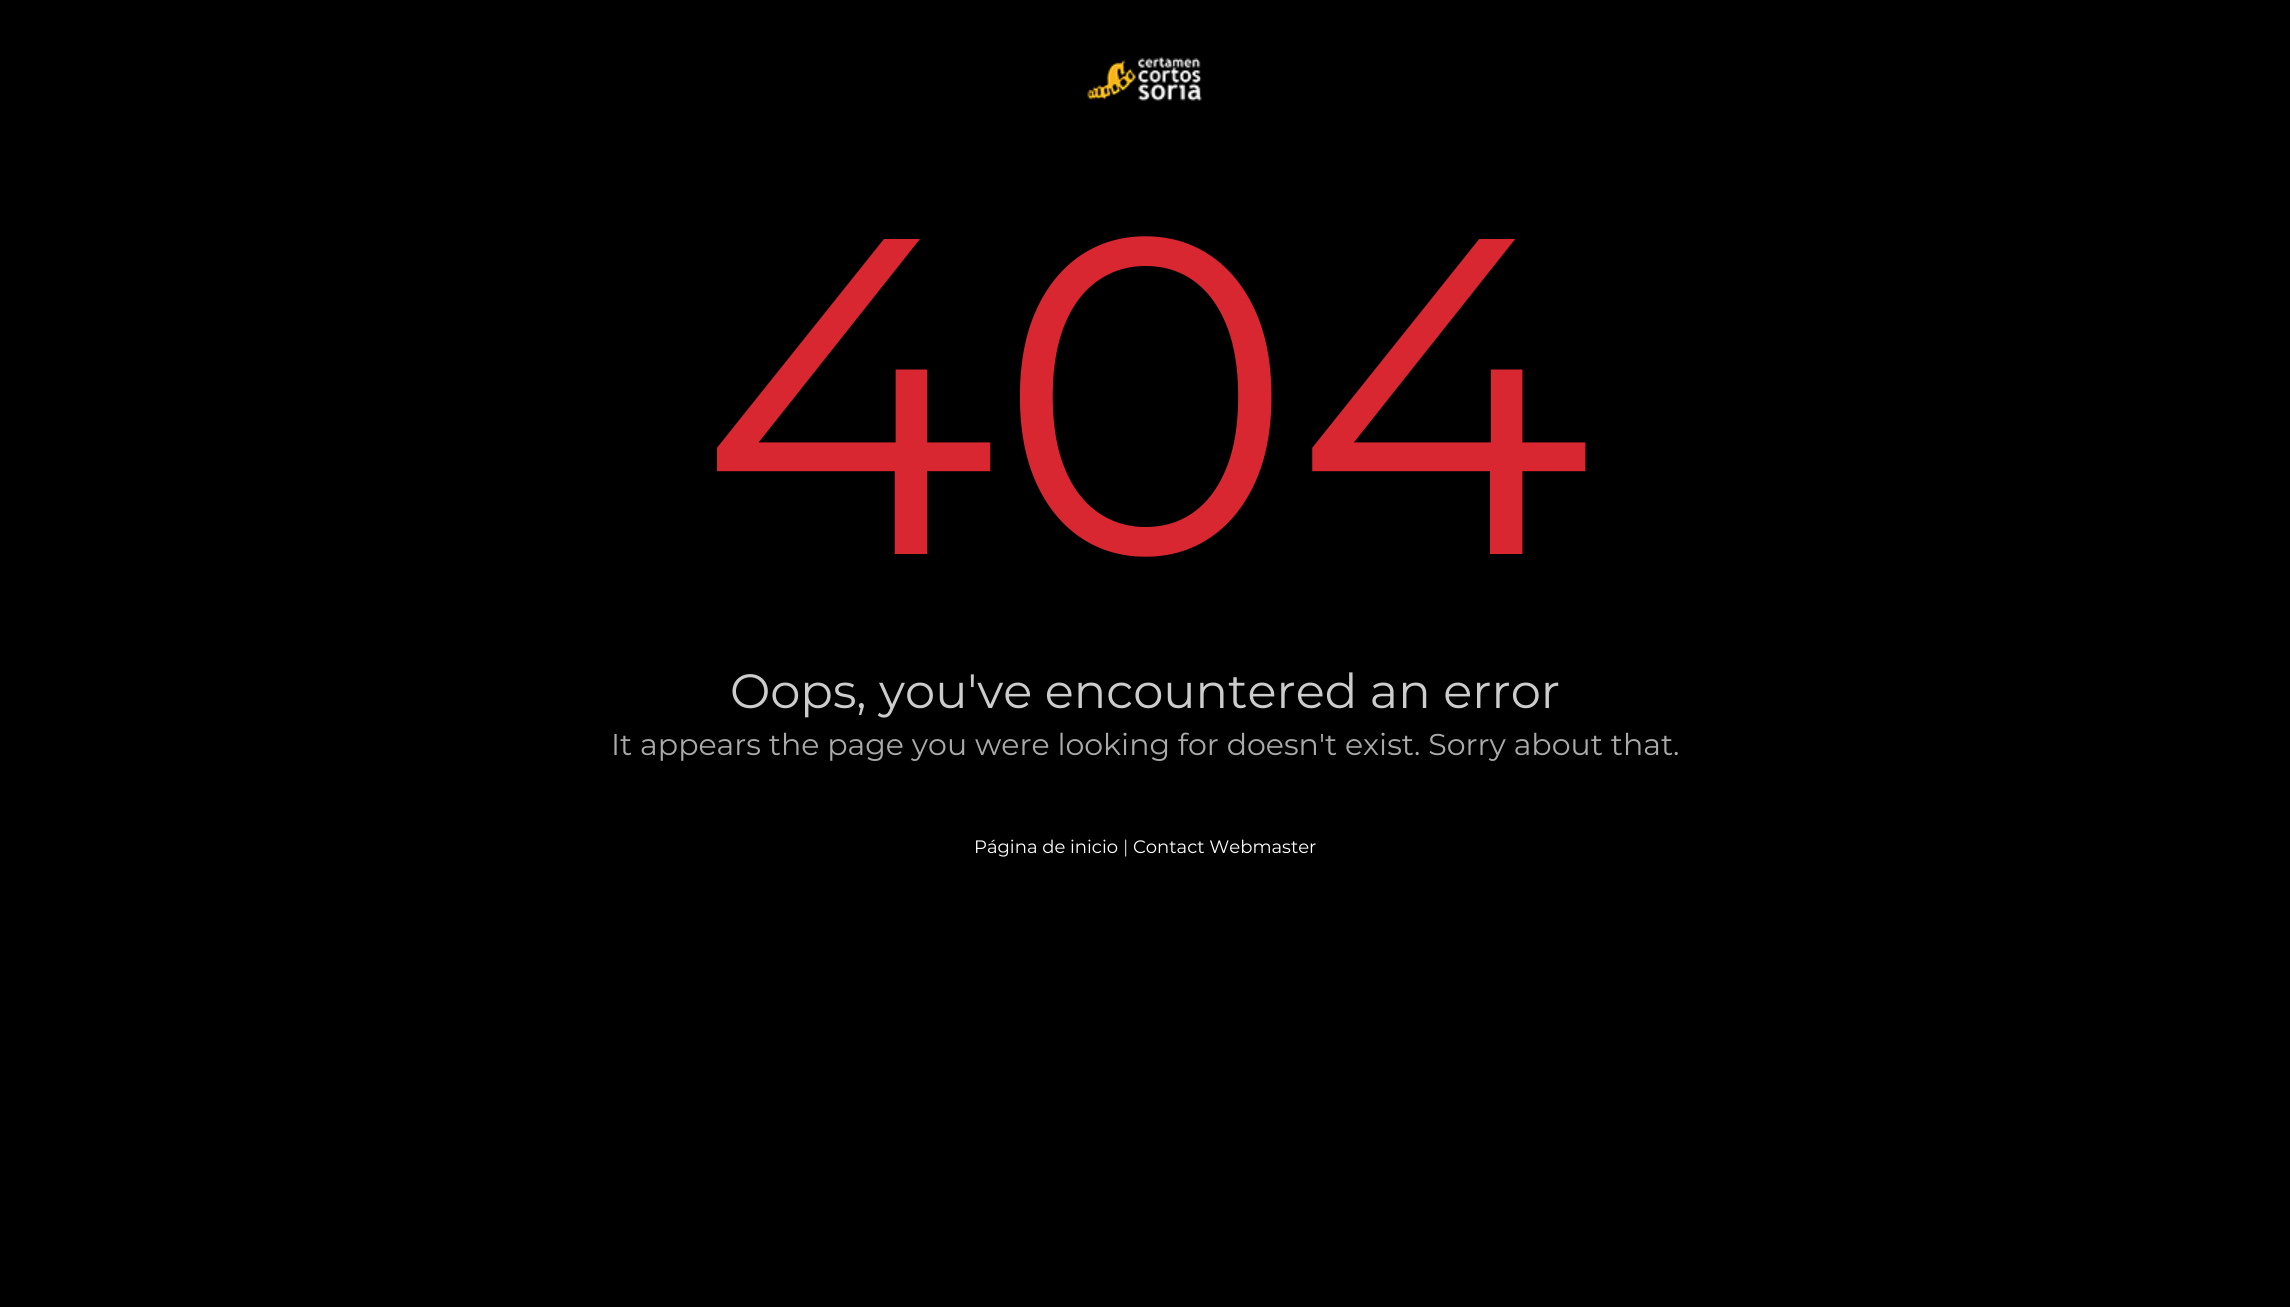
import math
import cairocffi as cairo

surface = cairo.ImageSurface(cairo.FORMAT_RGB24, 2290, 1307)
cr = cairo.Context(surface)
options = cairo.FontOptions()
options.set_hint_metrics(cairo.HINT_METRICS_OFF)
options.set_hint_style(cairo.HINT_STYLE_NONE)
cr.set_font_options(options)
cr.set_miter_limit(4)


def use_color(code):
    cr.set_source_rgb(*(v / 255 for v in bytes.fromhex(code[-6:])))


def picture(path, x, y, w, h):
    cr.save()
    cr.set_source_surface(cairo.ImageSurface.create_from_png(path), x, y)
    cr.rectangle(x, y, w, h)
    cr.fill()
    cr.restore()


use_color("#000000")
cr.paint()
picture("img1.png", 1087, 56, 115, 45)
cr.select_font_face("Montserrat")
cr.set_font_size(450)
use_color("#d82731")
cr.move_to(699, 554)
cr.show_text("404")
cr.set_font_size(48)
use_color("#cccccc")
cr.move_to(730, 708)
cr.show_text("Oops, you've encountered an error")
cr.set_font_size(30)
use_color("#aaaaaa")
cr.move_to(611, 755)
cr.show_text("It appears the page you were looking for doesn't exist. Sorry about that.")
cr.set_font_size(18)
use_color("#ffffff")
cr.move_to(974, 853)
cr.show_text("Página de inicio")
use_color("#cccccc")
cr.move_to(1123, 853)
cr.show_text("|")
use_color("#ffffff")
cr.move_to(1133, 853)
cr.show_text("Contact Webmaster")
surface.write_to_png("result.png")
